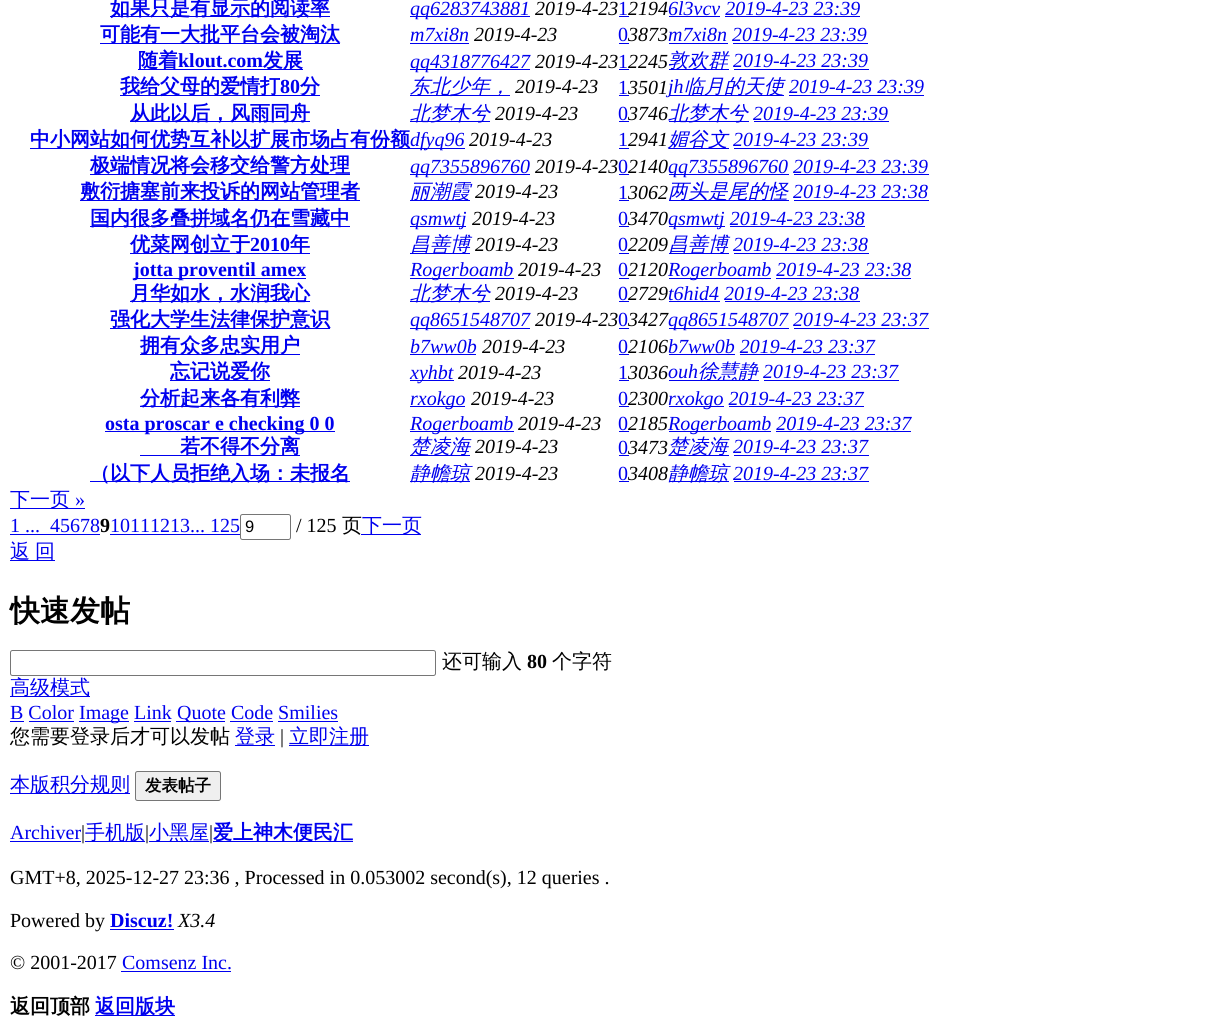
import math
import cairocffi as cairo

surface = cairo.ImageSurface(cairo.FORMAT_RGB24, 1232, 1031)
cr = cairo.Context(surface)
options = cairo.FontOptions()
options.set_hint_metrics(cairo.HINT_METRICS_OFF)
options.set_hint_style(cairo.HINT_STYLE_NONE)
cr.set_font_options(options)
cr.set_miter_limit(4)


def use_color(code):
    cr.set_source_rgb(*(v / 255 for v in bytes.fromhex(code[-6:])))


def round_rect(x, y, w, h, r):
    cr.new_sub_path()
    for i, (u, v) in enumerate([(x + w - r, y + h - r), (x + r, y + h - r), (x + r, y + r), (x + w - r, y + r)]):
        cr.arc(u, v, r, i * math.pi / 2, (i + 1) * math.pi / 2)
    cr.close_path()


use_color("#ffffff")
cr.paint()
use_color("#0000ee")
cr.rectangle(110, 16, 220, 1)
cr.fill()
cr.select_font_face("WenQuanYi Zen Hei", cairo.FONT_SLANT_NORMAL, cairo.FONT_WEIGHT_BOLD)
cr.set_font_size(20)
cr.move_to(110, 15)
cr.show_text("如果只是有显示的阅读率")
cr.rectangle(410, 16, 120, 1)
cr.fill()
cr.select_font_face("Liberation Serif", cairo.FONT_SLANT_ITALIC)
cr.move_to(410, 15)
cr.show_text("qq6283743881")
use_color("#000000")
cr.move_to(535, 15)
cr.show_text("2019-4-23")
cr.select_font_face("Liberation Serif")
use_color("#0000ee")
cr.move_to(618, 15)
cr.show_text("1")
cr.rectangle(619, 16, 10, 1)
cr.fill()
cr.select_font_face("Liberation Serif", cairo.FONT_SLANT_ITALIC)
use_color("#000000")
cr.move_to(628, 15)
cr.show_text("2194")
use_color("#0000ee")
cr.move_to(668, 15)
cr.show_text("6l3vcv 2019-4-23 23:39")
cr.rectangle(669, 16, 51, 1)
cr.fill()
cr.rectangle(725, 16, 135, 1)
cr.fill()
cr.rectangle(100, 43, 240, 1)
cr.fill()
cr.select_font_face("WenQuanYi Zen Hei", cairo.FONT_SLANT_NORMAL, cairo.FONT_WEIGHT_BOLD)
cr.move_to(100, 41)
cr.show_text("可能有一大批平台会被淘汰")
cr.select_font_face("Liberation Serif", cairo.FONT_SLANT_ITALIC)
cr.move_to(410, 41)
cr.show_text("m7xi8n")
cr.rectangle(410, 43, 59, 1)
cr.fill()
use_color("#000000")
cr.move_to(474, 41)
cr.show_text("2019-4-23")
cr.select_font_face("Liberation Serif")
use_color("#0000ee")
cr.move_to(618, 41)
cr.show_text("0")
cr.rectangle(619, 43, 10, 1)
cr.fill()
cr.select_font_face("Liberation Serif", cairo.FONT_SLANT_ITALIC)
use_color("#000000")
cr.move_to(628, 41)
cr.show_text("3873")
use_color("#0000ee")
cr.move_to(668, 41)
cr.show_text("m7xi8n 2019-4-23 23:39")
cr.rectangle(669, 43, 59, 1)
cr.fill()
cr.rectangle(733, 43, 135, 1)
cr.fill()
cr.rectangle(138, 69, 165, 1)
cr.fill()
cr.select_font_face("WenQuanYi Zen Hei", cairo.FONT_SLANT_NORMAL, cairo.FONT_WEIGHT_BOLD)
cr.move_to(138, 67)
cr.show_text("随着")
cr.select_font_face("Liberation Serif", cairo.FONT_SLANT_NORMAL, cairo.FONT_WEIGHT_BOLD)
cr.move_to(178, 67)
cr.show_text("klout.com")
cr.select_font_face("WenQuanYi Zen Hei", cairo.FONT_SLANT_NORMAL, cairo.FONT_WEIGHT_BOLD)
cr.move_to(263, 67)
cr.show_text("发展")
cr.rectangle(410, 69, 120, 1)
cr.fill()
cr.select_font_face("Liberation Serif", cairo.FONT_SLANT_ITALIC)
cr.move_to(410, 68)
cr.show_text("qq4318776427")
use_color("#000000")
cr.move_to(535, 68)
cr.show_text("2019-4-23")
cr.select_font_face("Liberation Serif")
use_color("#0000ee")
cr.move_to(618, 68)
cr.show_text("1")
cr.rectangle(619, 69, 10, 1)
cr.fill()
cr.select_font_face("Liberation Serif", cairo.FONT_SLANT_ITALIC)
use_color("#000000")
cr.move_to(628, 68)
cr.show_text("2245")
use_color("#0000ee")
cr.rectangle(669, 69, 60, 1)
cr.fill()
cr.select_font_face("WenQuanYi Zen Hei Medium", cairo.FONT_SLANT_ITALIC)
cr.move_to(668, 67)
cr.show_text("敦欢群")
cr.select_font_face("Liberation Serif", cairo.FONT_SLANT_ITALIC)
cr.move_to(733, 67)
cr.show_text("2019-4-23 23:39")
cr.rectangle(734, 69, 135, 1)
cr.fill()
cr.rectangle(120, 95, 200, 1)
cr.fill()
cr.select_font_face("WenQuanYi Zen Hei", cairo.FONT_SLANT_NORMAL, cairo.FONT_WEIGHT_BOLD)
cr.move_to(120, 93)
cr.show_text("我给父母的爱情打")
cr.select_font_face("Liberation Serif", cairo.FONT_SLANT_NORMAL, cairo.FONT_WEIGHT_BOLD)
cr.move_to(280, 93)
cr.show_text("80")
cr.select_font_face("WenQuanYi Zen Hei", cairo.FONT_SLANT_NORMAL, cairo.FONT_WEIGHT_BOLD)
cr.move_to(300, 93)
cr.show_text("分")
cr.rectangle(410, 95, 100, 1)
cr.fill()
cr.select_font_face("WenQuanYi Zen Hei Medium", cairo.FONT_SLANT_ITALIC)
cr.move_to(410, 93)
cr.show_text("东北少年，")
cr.select_font_face("Liberation Serif", cairo.FONT_SLANT_ITALIC)
use_color("#000000")
cr.move_to(515, 93)
cr.show_text("2019-4-23")
cr.select_font_face("Liberation Serif")
use_color("#0000ee")
cr.move_to(618, 94)
cr.show_text("1")
cr.rectangle(619, 95, 10, 1)
cr.fill()
cr.select_font_face("Liberation Serif", cairo.FONT_SLANT_ITALIC)
use_color("#000000")
cr.move_to(628, 94)
cr.show_text("3501")
use_color("#0000ee")
cr.rectangle(669, 95, 115, 1)
cr.fill()
cr.move_to(668, 93)
cr.show_text("jh")
cr.select_font_face("WenQuanYi Zen Hei Medium", cairo.FONT_SLANT_ITALIC)
cr.move_to(684, 93)
cr.show_text("临月的天使")
cr.select_font_face("Liberation Serif", cairo.FONT_SLANT_ITALIC)
cr.move_to(789, 93)
cr.show_text("2019-4-23 23:39")
cr.rectangle(789, 95, 135, 1)
cr.fill()
cr.rectangle(130, 121, 180, 1)
cr.fill()
cr.select_font_face("WenQuanYi Zen Hei", cairo.FONT_SLANT_NORMAL, cairo.FONT_WEIGHT_BOLD)
cr.move_to(130, 120)
cr.show_text("从此以后，风雨同舟")
cr.rectangle(410, 121, 80, 1)
cr.fill()
cr.select_font_face("WenQuanYi Zen Hei Medium", cairo.FONT_SLANT_ITALIC)
cr.move_to(410, 120)
cr.show_text("北梦木兮")
cr.select_font_face("Liberation Serif", cairo.FONT_SLANT_ITALIC)
use_color("#000000")
cr.move_to(495, 120)
cr.show_text("2019-4-23")
cr.select_font_face("Liberation Serif")
use_color("#0000ee")
cr.move_to(618, 120)
cr.show_text("0")
cr.rectangle(619, 121, 10, 1)
cr.fill()
cr.select_font_face("Liberation Serif", cairo.FONT_SLANT_ITALIC)
use_color("#000000")
cr.move_to(628, 120)
cr.show_text("3746")
use_color("#0000ee")
cr.rectangle(669, 121, 80, 1)
cr.fill()
cr.select_font_face("WenQuanYi Zen Hei Medium", cairo.FONT_SLANT_ITALIC)
cr.move_to(668, 120)
cr.show_text("北梦木兮")
cr.select_font_face("Liberation Serif", cairo.FONT_SLANT_ITALIC)
cr.move_to(753, 120)
cr.show_text("2019-4-23 23:39")
cr.rectangle(754, 121, 135, 1)
cr.fill()
cr.rectangle(30, 148, 435, 1)
cr.fill()
cr.select_font_face("WenQuanYi Zen Hei", cairo.FONT_SLANT_NORMAL, cairo.FONT_WEIGHT_BOLD)
cr.move_to(30, 146)
cr.show_text("中小网站如何优势互补以扩展市场占有份额")
cr.select_font_face("Liberation Serif", cairo.FONT_SLANT_ITALIC)
cr.move_to(410, 146)
cr.show_text("dfyq96")
use_color("#000000")
cr.move_to(469, 146)
cr.show_text("2019-4-23")
cr.select_font_face("Liberation Serif")
use_color("#0000ee")
cr.move_to(618, 146)
cr.show_text("1")
cr.rectangle(619, 148, 10, 1)
cr.fill()
cr.select_font_face("Liberation Serif", cairo.FONT_SLANT_ITALIC)
use_color("#000000")
cr.move_to(628, 146)
cr.show_text("2941")
use_color("#0000ee")
cr.rectangle(669, 148, 60, 1)
cr.fill()
cr.select_font_face("WenQuanYi Zen Hei Medium", cairo.FONT_SLANT_ITALIC)
cr.move_to(668, 146)
cr.show_text("媚谷文")
cr.select_font_face("Liberation Serif", cairo.FONT_SLANT_ITALIC)
cr.move_to(733, 146)
cr.show_text("2019-4-23 23:39")
cr.rectangle(734, 148, 135, 1)
cr.fill()
cr.rectangle(90, 174, 260, 1)
cr.fill()
cr.select_font_face("WenQuanYi Zen Hei", cairo.FONT_SLANT_NORMAL, cairo.FONT_WEIGHT_BOLD)
cr.move_to(90, 172)
cr.show_text("极端情况将会移交给警方处理")
cr.rectangle(410, 174, 120, 1)
cr.fill()
cr.select_font_face("Liberation Serif", cairo.FONT_SLANT_ITALIC)
cr.move_to(410, 173)
cr.show_text("qq7355896760")
use_color("#000000")
cr.move_to(535, 173)
cr.show_text("2019-4-23")
cr.select_font_face("Liberation Serif")
use_color("#0000ee")
cr.move_to(618, 173)
cr.show_text("0")
cr.rectangle(619, 174, 10, 1)
cr.fill()
cr.select_font_face("Liberation Serif", cairo.FONT_SLANT_ITALIC)
use_color("#000000")
cr.move_to(628, 173)
cr.show_text("2140")
use_color("#0000ee")
cr.rectangle(669, 174, 120, 1)
cr.fill()
cr.move_to(668, 173)
cr.show_text("qq7355896760 2019-4-23 23:39")
cr.rectangle(794, 174, 135, 1)
cr.fill()
cr.rectangle(80, 200, 280, 1)
cr.fill()
cr.select_font_face("WenQuanYi Zen Hei", cairo.FONT_SLANT_NORMAL, cairo.FONT_WEIGHT_BOLD)
cr.move_to(80, 198)
cr.show_text("敷衍搪塞前来投诉的网站管理者")
cr.rectangle(410, 200, 60, 1)
cr.fill()
cr.select_font_face("WenQuanYi Zen Hei Medium", cairo.FONT_SLANT_ITALIC)
cr.move_to(410, 198)
cr.show_text("丽潮霞")
cr.select_font_face("Liberation Serif", cairo.FONT_SLANT_ITALIC)
use_color("#000000")
cr.move_to(475, 198)
cr.show_text("2019-4-23")
cr.select_font_face("Liberation Serif")
use_color("#0000ee")
cr.move_to(618, 199)
cr.show_text("1")
cr.rectangle(619, 200, 10, 1)
cr.fill()
cr.select_font_face("Liberation Serif", cairo.FONT_SLANT_ITALIC)
use_color("#000000")
cr.move_to(628, 199)
cr.show_text("3062")
use_color("#0000ee")
cr.rectangle(669, 200, 120, 1)
cr.fill()
cr.select_font_face("WenQuanYi Zen Hei Medium", cairo.FONT_SLANT_ITALIC)
cr.move_to(668, 198)
cr.show_text("两头是尾的怪")
cr.select_font_face("Liberation Serif", cairo.FONT_SLANT_ITALIC)
cr.move_to(793, 198)
cr.show_text("2019-4-23 23:38")
cr.rectangle(794, 200, 135, 1)
cr.fill()
cr.rectangle(90, 226, 260, 1)
cr.fill()
cr.select_font_face("WenQuanYi Zen Hei", cairo.FONT_SLANT_NORMAL, cairo.FONT_WEIGHT_BOLD)
cr.move_to(90, 225)
cr.show_text("国内很多叠拼域名仍在雪藏中")
cr.rectangle(410, 226, 56, 1)
cr.fill()
cr.select_font_face("Liberation Serif", cairo.FONT_SLANT_ITALIC)
cr.move_to(410, 225)
cr.show_text("qsmwtj")
use_color("#000000")
cr.move_to(472, 225)
cr.show_text("2019-4-23")
cr.select_font_face("Liberation Serif")
use_color("#0000ee")
cr.move_to(618, 225)
cr.show_text("0")
cr.rectangle(619, 226, 10, 1)
cr.fill()
cr.select_font_face("Liberation Serif", cairo.FONT_SLANT_ITALIC)
use_color("#000000")
cr.move_to(628, 225)
cr.show_text("3470")
use_color("#0000ee")
cr.rectangle(669, 226, 56, 1)
cr.fill()
cr.move_to(668, 225)
cr.show_text("qsmwtj 2019-4-23 23:38")
cr.rectangle(730, 226, 135, 1)
cr.fill()
cr.rectangle(130, 253, 180, 1)
cr.fill()
cr.select_font_face("WenQuanYi Zen Hei", cairo.FONT_SLANT_NORMAL, cairo.FONT_WEIGHT_BOLD)
cr.move_to(130, 251)
cr.show_text("优菜网创立于")
cr.select_font_face("Liberation Serif", cairo.FONT_SLANT_NORMAL, cairo.FONT_WEIGHT_BOLD)
cr.move_to(250, 251)
cr.show_text("2010")
cr.select_font_face("WenQuanYi Zen Hei", cairo.FONT_SLANT_NORMAL, cairo.FONT_WEIGHT_BOLD)
cr.move_to(290, 251)
cr.show_text("年")
cr.rectangle(410, 253, 60, 1)
cr.fill()
cr.select_font_face("WenQuanYi Zen Hei Medium", cairo.FONT_SLANT_ITALIC)
cr.move_to(410, 251)
cr.show_text("昌善博")
cr.select_font_face("Liberation Serif", cairo.FONT_SLANT_ITALIC)
use_color("#000000")
cr.move_to(475, 251)
cr.show_text("2019-4-23")
cr.select_font_face("Liberation Serif")
use_color("#0000ee")
cr.move_to(618, 251)
cr.show_text("0")
cr.rectangle(619, 253, 10, 1)
cr.fill()
cr.select_font_face("Liberation Serif", cairo.FONT_SLANT_ITALIC)
use_color("#000000")
cr.move_to(628, 251)
cr.show_text("2209")
use_color("#0000ee")
cr.rectangle(669, 253, 60, 1)
cr.fill()
cr.select_font_face("WenQuanYi Zen Hei Medium", cairo.FONT_SLANT_ITALIC)
cr.move_to(668, 251)
cr.show_text("昌善博")
cr.select_font_face("Liberation Serif", cairo.FONT_SLANT_ITALIC)
cr.move_to(733, 251)
cr.show_text("2019-4-23 23:38")
cr.rectangle(734, 253, 135, 1)
cr.fill()
cr.rectangle(134, 278, 172, 1)
cr.fill()
cr.select_font_face("Liberation Serif", cairo.FONT_SLANT_NORMAL, cairo.FONT_WEIGHT_BOLD)
cr.move_to(133, 276)
cr.show_text("jotta proventil amex")
cr.rectangle(410, 278, 104, 1)
cr.fill()
cr.select_font_face("Liberation Serif", cairo.FONT_SLANT_ITALIC)
cr.move_to(410, 276)
cr.show_text("Rogerboamb")
use_color("#000000")
cr.move_to(518, 276)
cr.show_text("2019-4-23")
cr.select_font_face("Liberation Serif")
use_color("#0000ee")
cr.move_to(618, 276)
cr.show_text("0")
cr.rectangle(619, 278, 10, 1)
cr.fill()
cr.select_font_face("Liberation Serif", cairo.FONT_SLANT_ITALIC)
use_color("#000000")
cr.move_to(628, 276)
cr.show_text("2120")
use_color("#0000ee")
cr.rectangle(669, 278, 102, 1)
cr.fill()
cr.move_to(668, 276)
cr.show_text("Rogerboamb 2019-4-23 23:38")
cr.rectangle(776, 278, 135, 1)
cr.fill()
cr.rectangle(130, 301, 180, 1)
cr.fill()
cr.select_font_face("WenQuanYi Zen Hei", cairo.FONT_SLANT_NORMAL, cairo.FONT_WEIGHT_BOLD)
cr.move_to(130, 300)
cr.show_text("月华如水，水润我心")
cr.rectangle(410, 301, 80, 1)
cr.fill()
cr.select_font_face("WenQuanYi Zen Hei Medium", cairo.FONT_SLANT_ITALIC)
cr.move_to(410, 300)
cr.show_text("北梦木兮")
cr.select_font_face("Liberation Serif", cairo.FONT_SLANT_ITALIC)
use_color("#000000")
cr.move_to(495, 300)
cr.show_text("2019-4-23")
cr.select_font_face("Liberation Serif")
use_color("#0000ee")
cr.move_to(618, 300)
cr.show_text("0")
cr.rectangle(619, 301, 10, 1)
cr.fill()
cr.select_font_face("Liberation Serif", cairo.FONT_SLANT_ITALIC)
use_color("#000000")
cr.move_to(628, 300)
cr.show_text("2729")
use_color("#0000ee")
cr.move_to(668, 300)
cr.show_text("t6hid4 2019-4-23 23:38")
cr.rectangle(669, 301, 51, 1)
cr.fill()
cr.rectangle(725, 301, 135, 1)
cr.fill()
cr.rectangle(110, 328, 220, 1)
cr.fill()
cr.select_font_face("WenQuanYi Zen Hei", cairo.FONT_SLANT_NORMAL, cairo.FONT_WEIGHT_BOLD)
cr.move_to(110, 326)
cr.show_text("强化大学生法律保护意识")
cr.rectangle(410, 328, 120, 1)
cr.fill()
cr.select_font_face("Liberation Serif", cairo.FONT_SLANT_ITALIC)
cr.move_to(410, 326)
cr.show_text("qq8651548707")
use_color("#000000")
cr.move_to(535, 326)
cr.show_text("2019-4-23")
cr.select_font_face("Liberation Serif")
use_color("#0000ee")
cr.move_to(618, 326)
cr.show_text("0")
cr.rectangle(619, 328, 10, 1)
cr.fill()
cr.select_font_face("Liberation Serif", cairo.FONT_SLANT_ITALIC)
use_color("#000000")
cr.move_to(628, 326)
cr.show_text("3427")
use_color("#0000ee")
cr.rectangle(669, 328, 120, 1)
cr.fill()
cr.move_to(668, 326)
cr.show_text("qq8651548707 2019-4-23 23:37")
cr.rectangle(794, 328, 135, 1)
cr.fill()
cr.rectangle(140, 354, 160, 1)
cr.fill()
cr.select_font_face("WenQuanYi Zen Hei", cairo.FONT_SLANT_NORMAL, cairo.FONT_WEIGHT_BOLD)
cr.move_to(140, 352)
cr.show_text("拥有众多忠实用户")
cr.select_font_face("Liberation Serif", cairo.FONT_SLANT_ITALIC)
cr.move_to(410, 353)
cr.show_text("b7ww0b")
cr.rectangle(410, 354, 66, 1)
cr.fill()
use_color("#000000")
cr.move_to(482, 353)
cr.show_text("2019-4-23")
cr.select_font_face("Liberation Serif")
use_color("#0000ee")
cr.move_to(618, 353)
cr.show_text("0")
cr.rectangle(619, 354, 10, 1)
cr.fill()
cr.select_font_face("Liberation Serif", cairo.FONT_SLANT_ITALIC)
use_color("#000000")
cr.move_to(628, 353)
cr.show_text("2106")
use_color("#0000ee")
cr.move_to(668, 353)
cr.show_text("b7ww0b 2019-4-23 23:37")
cr.rectangle(669, 354, 66, 1)
cr.fill()
cr.rectangle(740, 354, 135, 1)
cr.fill()
cr.rectangle(170, 380, 100, 1)
cr.fill()
cr.select_font_face("WenQuanYi Zen Hei", cairo.FONT_SLANT_NORMAL, cairo.FONT_WEIGHT_BOLD)
cr.move_to(170, 378)
cr.show_text("忘记说爱你")
cr.rectangle(410, 380, 44, 1)
cr.fill()
cr.select_font_face("Liberation Serif", cairo.FONT_SLANT_ITALIC)
cr.move_to(410, 379)
cr.show_text("xyhbt")
use_color("#000000")
cr.move_to(458, 379)
cr.show_text("2019-4-23")
cr.select_font_face("Liberation Serif")
use_color("#0000ee")
cr.move_to(618, 379)
cr.show_text("1")
cr.rectangle(619, 380, 10, 1)
cr.fill()
cr.select_font_face("Liberation Serif", cairo.FONT_SLANT_ITALIC)
use_color("#000000")
cr.move_to(628, 379)
cr.show_text("3036")
use_color("#0000ee")
cr.move_to(668, 378)
cr.show_text("ouh")
cr.rectangle(669, 380, 90, 1)
cr.fill()
cr.select_font_face("WenQuanYi Zen Hei Medium", cairo.FONT_SLANT_ITALIC)
cr.move_to(698, 378)
cr.show_text("徐慧静")
cr.select_font_face("Liberation Serif", cairo.FONT_SLANT_ITALIC)
cr.move_to(763, 378)
cr.show_text("2019-4-23 23:37")
cr.rectangle(764, 380, 135, 1)
cr.fill()
cr.rectangle(140, 406, 160, 1)
cr.fill()
cr.select_font_face("WenQuanYi Zen Hei", cairo.FONT_SLANT_NORMAL, cairo.FONT_WEIGHT_BOLD)
cr.move_to(140, 405)
cr.show_text("分析起来各有利弊")
cr.rectangle(410, 406, 55, 1)
cr.fill()
cr.select_font_face("Liberation Serif", cairo.FONT_SLANT_ITALIC)
cr.move_to(410, 405)
cr.show_text("rxokgo")
use_color("#000000")
cr.move_to(471, 405)
cr.show_text("2019-4-23")
cr.select_font_face("Liberation Serif")
use_color("#0000ee")
cr.move_to(618, 405)
cr.show_text("0")
cr.rectangle(619, 406, 10, 1)
cr.fill()
cr.select_font_face("Liberation Serif", cairo.FONT_SLANT_ITALIC)
use_color("#000000")
cr.move_to(628, 405)
cr.show_text("2300")
use_color("#0000ee")
cr.rectangle(669, 406, 55, 1)
cr.fill()
cr.move_to(668, 405)
cr.show_text("rxokgo 2019-4-23 23:37")
cr.rectangle(729, 406, 135, 1)
cr.fill()
cr.rectangle(105, 431, 230, 1)
cr.fill()
cr.select_font_face("Liberation Serif", cairo.FONT_SLANT_NORMAL, cairo.FONT_WEIGHT_BOLD)
cr.move_to(105, 430)
cr.show_text("osta proscar e checking 0 0")
cr.rectangle(410, 431, 104, 1)
cr.fill()
cr.select_font_face("Liberation Serif", cairo.FONT_SLANT_ITALIC)
cr.move_to(410, 430)
cr.show_text("Rogerboamb")
use_color("#000000")
cr.move_to(518, 430)
cr.show_text("2019-4-23")
cr.select_font_face("Liberation Serif")
use_color("#0000ee")
cr.move_to(618, 430)
cr.show_text("0")
cr.rectangle(619, 431, 10, 1)
cr.fill()
cr.select_font_face("Liberation Serif", cairo.FONT_SLANT_ITALIC)
use_color("#000000")
cr.move_to(628, 430)
cr.show_text("2185")
use_color("#0000ee")
cr.rectangle(669, 431, 102, 1)
cr.fill()
cr.move_to(668, 430)
cr.show_text("Rogerboamb 2019-4-23 23:37")
cr.rectangle(776, 431, 135, 1)
cr.fill()
cr.rectangle(140, 455, 160, 1)
cr.fill()
cr.select_font_face("WenQuanYi Zen Hei", cairo.FONT_SLANT_NORMAL, cairo.FONT_WEIGHT_BOLD)
cr.move_to(180, 453)
cr.show_text("若不得不分离")
cr.rectangle(410, 455, 60, 1)
cr.fill()
cr.select_font_face("WenQuanYi Zen Hei Medium", cairo.FONT_SLANT_ITALIC)
cr.move_to(410, 453)
cr.show_text("楚凌海")
cr.select_font_face("Liberation Serif", cairo.FONT_SLANT_ITALIC)
use_color("#000000")
cr.move_to(475, 453)
cr.show_text("2019-4-23")
cr.select_font_face("Liberation Serif")
use_color("#0000ee")
cr.move_to(618, 454)
cr.show_text("0")
cr.rectangle(619, 455, 10, 1)
cr.fill()
cr.select_font_face("Liberation Serif", cairo.FONT_SLANT_ITALIC)
use_color("#000000")
cr.move_to(628, 454)
cr.show_text("3473")
use_color("#0000ee")
cr.rectangle(669, 455, 60, 1)
cr.fill()
cr.select_font_face("WenQuanYi Zen Hei Medium", cairo.FONT_SLANT_ITALIC)
cr.move_to(668, 453)
cr.show_text("楚凌海")
cr.select_font_face("Liberation Serif", cairo.FONT_SLANT_ITALIC)
cr.move_to(733, 453)
cr.show_text("2019-4-23 23:37")
cr.rectangle(734, 455, 135, 1)
cr.fill()
cr.rectangle(90, 481, 260, 1)
cr.fill()
cr.select_font_face("WenQuanYi Zen Hei", cairo.FONT_SLANT_NORMAL, cairo.FONT_WEIGHT_BOLD)
cr.move_to(90, 480)
cr.show_text("（以下人员拒绝入场：未报名")
cr.rectangle(410, 481, 60, 1)
cr.fill()
cr.select_font_face("WenQuanYi Zen Hei Medium", cairo.FONT_SLANT_ITALIC)
cr.move_to(410, 480)
cr.show_text("静幨琼")
cr.select_font_face("Liberation Serif", cairo.FONT_SLANT_ITALIC)
use_color("#000000")
cr.move_to(475, 480)
cr.show_text("2019-4-23")
cr.select_font_face("Liberation Serif")
use_color("#0000ee")
cr.move_to(618, 480)
cr.show_text("0")
cr.rectangle(619, 481, 10, 1)
cr.fill()
cr.select_font_face("Liberation Serif", cairo.FONT_SLANT_ITALIC)
use_color("#000000")
cr.move_to(628, 480)
cr.show_text("3408")
use_color("#0000ee")
cr.rectangle(669, 481, 60, 1)
cr.fill()
cr.select_font_face("WenQuanYi Zen Hei Medium", cairo.FONT_SLANT_ITALIC)
cr.move_to(668, 480)
cr.show_text("静幨琼")
cr.select_font_face("Liberation Serif", cairo.FONT_SLANT_ITALIC)
cr.move_to(733, 480)
cr.show_text("2019-4-23 23:37")
cr.rectangle(734, 481, 135, 1)
cr.fill()
cr.rectangle(10, 508, 75, 1)
cr.fill()
cr.select_font_face("WenQuanYi Zen Hei Medium")
cr.move_to(10, 506)
cr.show_text("下一页")
cr.select_font_face("Liberation Serif")
cr.move_to(75, 506)
cr.show_text("»")
cr.move_to(10, 532)
cr.show_text("1 ...")
cr.rectangle(10, 534, 90, 1)
cr.fill()
cr.move_to(50, 532)
cr.show_text("45678")
cr.select_font_face("Liberation Serif", cairo.FONT_SLANT_NORMAL, cairo.FONT_WEIGHT_BOLD)
use_color("#000000")
cr.move_to(100, 532)
cr.show_text("9")
cr.select_font_face("Liberation Serif")
use_color("#0000ee")
cr.move_to(110, 532)
cr.show_text("10111213... 125")
cr.rectangle(110, 534, 130, 1)
cr.fill()
round_rect(240.5, 514.5, 50, 25, 2)
use_color("#767676")
cr.set_line_width(1)
cr.stroke()
cr.select_font_face("Liberation Sans")
cr.set_font_size(16.5)
use_color("#000000")
cr.move_to(245, 532)
cr.show_text("9")
cr.select_font_face("Liberation Serif")
cr.set_font_size(20)
cr.move_to(296, 532)
cr.show_text("/ 125")
cr.select_font_face("WenQuanYi Zen Hei Medium")
cr.move_to(342, 532)
cr.show_text("页")
use_color("#0000ee")
cr.rectangle(361, 534, 60, 1)
cr.fill()
cr.move_to(362, 532)
cr.show_text("下一页")
cr.move_to(10, 558)
cr.show_text("返")
cr.rectangle(10, 560, 45, 1)
cr.fill()
cr.move_to(35, 558)
cr.show_text("回")
cr.select_font_face("WenQuanYi Zen Hei", cairo.FONT_SLANT_NORMAL, cairo.FONT_WEIGHT_BOLD)
cr.set_font_size(30)
use_color("#000000")
cr.move_to(10, 621)
cr.show_text("快速发帖")
round_rect(10.5, 650.5, 425, 25, 2)
use_color("#767676")
cr.stroke()
cr.select_font_face("WenQuanYi Zen Hei Medium")
cr.set_font_size(20)
use_color("#000000")
cr.move_to(442, 668)
cr.show_text("还可输入")
cr.select_font_face("Liberation Serif", cairo.FONT_SLANT_NORMAL, cairo.FONT_WEIGHT_BOLD)
cr.move_to(527, 668)
cr.show_text("80")
cr.select_font_face("WenQuanYi Zen Hei Medium")
cr.move_to(552, 668)
cr.show_text("个字符")
use_color("#0000ee")
cr.rectangle(10, 696, 80, 1)
cr.fill()
cr.move_to(10, 694)
cr.show_text("高级模式")
cr.select_font_face("Liberation Serif")
cr.move_to(10, 719)
cr.show_text("B Color")
cr.rectangle(10, 721, 14, 1)
cr.fill()
cr.rectangle(79, 721, 50, 1)
cr.fill()
cr.move_to(79, 719)
cr.show_text("Image Link")
cr.rectangle(176, 721, 49, 1)
cr.fill()
cr.move_to(177, 719)
cr.show_text("Quote Code Smilies")
cr.rectangle(29, 721, 45, 1)
cr.fill()
cr.rectangle(134, 721, 37, 1)
cr.fill()
cr.rectangle(230, 721, 43, 1)
cr.fill()
cr.rectangle(278, 721, 60, 1)
cr.fill()
cr.select_font_face("WenQuanYi Zen Hei Medium")
use_color("#000000")
cr.move_to(10, 743)
cr.show_text("您需要登录后才可以发帖")
use_color("#0000ee")
cr.rectangle(235, 745, 40, 1)
cr.fill()
cr.move_to(235, 743)
cr.show_text("登录")
cr.select_font_face("Liberation Serif")
use_color("#000000")
cr.move_to(280, 743)
cr.show_text("|")
use_color("#0000ee")
cr.rectangle(289, 745, 80, 1)
cr.fill()
cr.select_font_face("WenQuanYi Zen Hei Medium")
cr.move_to(289, 743)
cr.show_text("立即注册")
cr.rectangle(10, 793, 120, 1)
cr.fill()
cr.move_to(10, 791)
cr.show_text("本版积分规则")
use_color("#efefef")
round_rect(135.5, 771.5, 85, 29, 2)
cr.fill_preserve()
use_color("#767676")
cr.stroke()
cr.select_font_face("WenQuanYi Zen Hei", cairo.FONT_SLANT_NORMAL, cairo.FONT_WEIGHT_BOLD)
cr.set_font_size(16.5)
use_color("#000000")
cr.move_to(145, 791)
cr.show_text("发表帖子")
cr.select_font_face("Liberation Serif")
cr.set_font_size(20)
use_color("#0000ee")
cr.move_to(10, 839)
cr.show_text("Archiver")
cr.rectangle(10, 841, 71, 1)
cr.fill()
use_color("#000000")
cr.move_to(81, 839)
cr.show_text("|")
use_color("#0000ee")
cr.rectangle(85, 841, 60, 1)
cr.fill()
cr.select_font_face("WenQuanYi Zen Hei Medium")
cr.move_to(85, 839)
cr.show_text("手机版")
cr.select_font_face("Liberation Serif")
use_color("#000000")
cr.move_to(145, 839)
cr.show_text("|")
use_color("#0000ee")
cr.rectangle(149, 841, 60, 1)
cr.fill()
cr.select_font_face("WenQuanYi Zen Hei Medium")
cr.move_to(149, 839)
cr.show_text("小黑屋")
cr.select_font_face("Liberation Serif")
use_color("#000000")
cr.move_to(209, 839)
cr.show_text("|")
use_color("#0000ee")
cr.rectangle(213, 841, 140, 1)
cr.fill()
cr.select_font_face("WenQuanYi Zen Hei", cairo.FONT_SLANT_NORMAL, cairo.FONT_WEIGHT_BOLD)
cr.move_to(213, 839)
cr.show_text("爱上神木便民汇")
cr.select_font_face("Liberation Serif")
use_color("#000000")
cr.move_to(10, 884)
cr.show_text("GMT+8, 2025-12-27 23:36 , Processed in 0.053002 second(s), 12 queries .")
cr.move_to(10, 927)
cr.show_text("Powered by")
cr.select_font_face("Liberation Serif", cairo.FONT_SLANT_NORMAL, cairo.FONT_WEIGHT_BOLD)
use_color("#0000ee")
cr.move_to(110, 927)
cr.show_text("Discuz!")
cr.rectangle(110, 929, 64, 1)
cr.fill()
cr.select_font_face("Liberation Serif", cairo.FONT_SLANT_ITALIC)
use_color("#000000")
cr.move_to(178, 927)
cr.show_text("X3.4")
cr.select_font_face("Liberation Serif")
cr.move_to(10, 969)
cr.show_text("© 2001-2017")
use_color("#0000ee")
cr.move_to(122, 969)
cr.show_text("Comsenz Inc.")
cr.rectangle(121, 971, 110, 1)
cr.fill()
cr.select_font_face("WenQuanYi Zen Hei", cairo.FONT_SLANT_NORMAL, cairo.FONT_WEIGHT_BOLD)
use_color("#000000")
cr.move_to(10, 1013)
cr.show_text("返回顶部")
use_color("#0000ee")
cr.rectangle(95, 1015, 80, 1)
cr.fill()
cr.move_to(95, 1013)
cr.show_text("返回版块")
surface.write_to_png("result.png")
